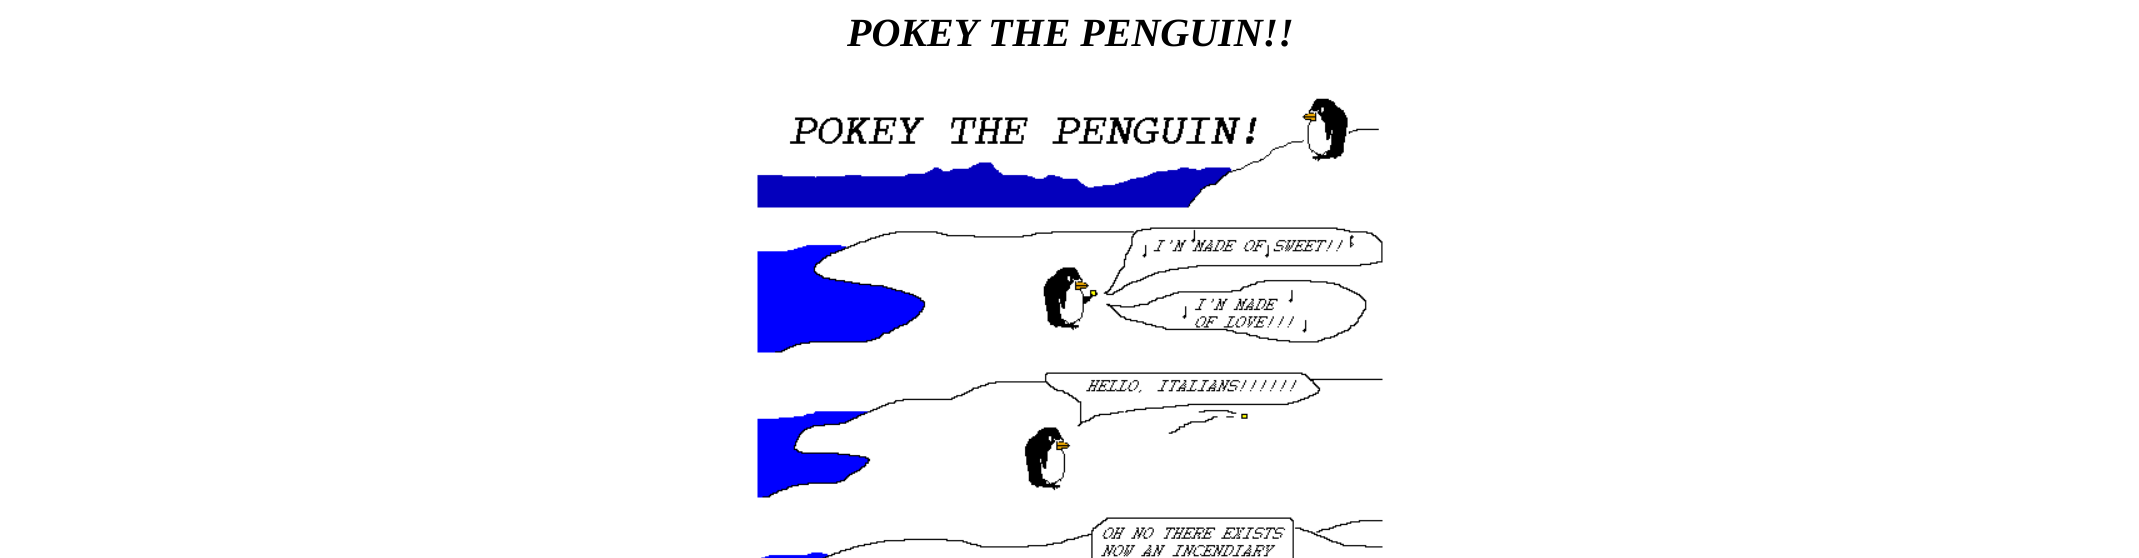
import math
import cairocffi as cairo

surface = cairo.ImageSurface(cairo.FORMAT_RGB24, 2139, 558)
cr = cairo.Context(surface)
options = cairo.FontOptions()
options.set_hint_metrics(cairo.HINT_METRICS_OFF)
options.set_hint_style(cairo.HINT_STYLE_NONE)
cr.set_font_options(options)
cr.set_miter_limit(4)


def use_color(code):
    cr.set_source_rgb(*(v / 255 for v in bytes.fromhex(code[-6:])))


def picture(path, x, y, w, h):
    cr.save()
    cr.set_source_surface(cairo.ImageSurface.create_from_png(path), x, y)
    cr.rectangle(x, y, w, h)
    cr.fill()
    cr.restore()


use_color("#ffffff")
cr.paint()
cr.select_font_face("Liberation Serif", cairo.FONT_SLANT_ITALIC, cairo.FONT_WEIGHT_BOLD)
cr.set_font_size(40)
use_color("#000000")
cr.move_to(847, 46)
cr.show_text("POKEY THE PENGUIN!!")
picture("img1.png", 757, 98, 622, 110)
picture("img2.png", 757, 227, 626, 126)
picture("img3.png", 757, 372, 626, 126)
picture("img4.png", 761, 517, 622, 41)
surface.write_to_png("result.png")
